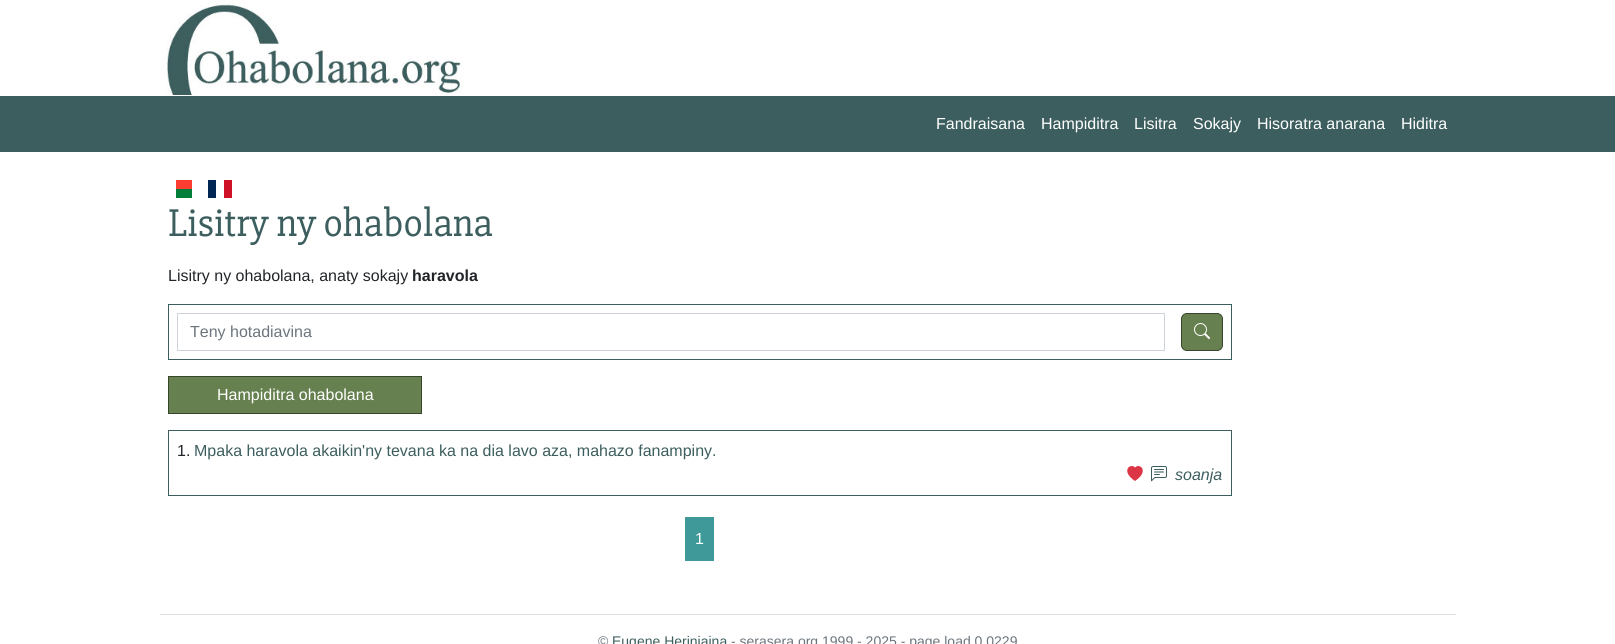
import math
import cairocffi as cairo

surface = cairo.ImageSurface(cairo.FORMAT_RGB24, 1615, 644)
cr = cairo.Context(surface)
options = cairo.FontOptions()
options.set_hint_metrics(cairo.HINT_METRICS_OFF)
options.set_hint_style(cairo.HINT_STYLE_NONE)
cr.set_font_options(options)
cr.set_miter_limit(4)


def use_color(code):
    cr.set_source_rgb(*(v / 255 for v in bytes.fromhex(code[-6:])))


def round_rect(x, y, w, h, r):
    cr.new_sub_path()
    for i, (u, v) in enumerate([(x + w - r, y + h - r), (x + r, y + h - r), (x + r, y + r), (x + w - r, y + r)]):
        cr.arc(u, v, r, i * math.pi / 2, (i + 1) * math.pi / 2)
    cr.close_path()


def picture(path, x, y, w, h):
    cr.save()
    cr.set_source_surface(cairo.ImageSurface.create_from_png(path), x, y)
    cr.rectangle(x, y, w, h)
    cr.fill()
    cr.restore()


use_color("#ffffff")
cr.paint()
picture("img1.png", 166, 0, 297, 95)
use_color("#3d5e5e")
cr.rectangle(0, 96, 1615, 56)
cr.fill()
cr.select_font_face("Liberation Sans")
cr.set_font_size(16)
use_color("#ffffff")
cr.move_to(936, 129)
cr.show_text("Fandraisana")
cr.move_to(1041, 129)
cr.show_text("Hampiditra")
cr.move_to(1134, 129)
cr.show_text("Lisitra")
cr.move_to(1193, 129)
cr.show_text("Sokajy")
cr.move_to(1257, 129)
cr.show_text("Hisoratra anarana")
cr.move_to(1401, 129)
cr.show_text("Hiditra")
use_color("#fc3d32")
cr.rectangle(176, 180, 16, 9)
cr.fill()
use_color("#007e3a")
cr.rectangle(176, 189, 16, 9)
cr.fill()
use_color("#002654")
cr.rectangle(208, 180, 8, 18)
cr.fill()
use_color("#ce1126")
cr.rectangle(224, 180, 8, 18)
cr.fill()
cr.select_font_face("Slabo 27px")
cr.set_font_size(40)
use_color("#3d5e5e")
cr.move_to(168, 236)
cr.show_text("Lisitry ny ohabolana")
cr.select_font_face("Liberation Sans")
cr.set_font_size(16)
use_color("#212529")
cr.move_to(168, 281)
cr.show_text("Lisitry ny ohabolana, anaty sokajy")
cr.select_font_face("Liberation Sans", cairo.FONT_SLANT_NORMAL, cairo.FONT_WEIGHT_BOLD)
cr.move_to(412, 281)
cr.show_text("haravola")
cr.rectangle(168.5, 304.5, 1063, 55)
use_color("#3d5e5e")
cr.set_line_width(1)
cr.stroke()
cr.rectangle(177.5, 313.5, 987, 37)
use_color("#ced4da")
cr.stroke()
cr.select_font_face("Liberation Sans")
use_color("#6c757d")
cr.move_to(190, 337)
cr.show_text("Teny hotadiavina")
use_color("#66804f")
round_rect(1181.5, 313.5, 41, 37, 5.5)
cr.fill_preserve()
use_color("#37462b")
cr.stroke()
picture("img2.png", 1194, 323, 16, 16)
use_color("#66804f")
cr.rectangle(168.5, 376.5, 253, 37)
cr.fill_preserve()
use_color("#37462b")
cr.stroke()
use_color("#ffffff")
cr.move_to(217, 400)
cr.show_text("Hampiditra ohabolana")
cr.rectangle(168.5, 430.5, 1063, 65)
use_color("#3d5e5e")
cr.stroke()
use_color("#212529")
cr.move_to(177, 456)
cr.show_text("1.")
use_color("#3d5e5e")
cr.move_to(194, 456)
cr.show_text("Mpaka haravola akaikin'ny tevana ka na dia lavo aza, mahazo fanampiny.")
use_color("#dc3545")
cr.new_path()
cr.move_to(1135, 467.5)
cr.curve_to(1139.5, 462.5, 1150, 471, 1135, 481)
cr.curve_to(1120, 471, 1130.5, 462.5, 1135, 467.5)
cr.close_path()
cr.fill()
picture("img3.png", 1151, 466, 16, 16)
cr.select_font_face("Liberation Sans", cairo.FONT_SLANT_ITALIC)
use_color("#3d5e5e")
cr.move_to(1175, 480)
cr.show_text("soanja")
use_color("#3f9999")
cr.rectangle(685, 517, 29, 44)
cr.fill()
cr.select_font_face("Liberation Sans")
use_color("#ffffff")
cr.move_to(695, 544)
cr.show_text("1")
use_color("#dee2e6")
cr.rectangle(160, 614, 1296, 1)
cr.fill()
cr.set_font_size(14)
use_color("#6c757d")
cr.move_to(598, 646)
cr.show_text("©")
use_color("#3d5e5e")
cr.move_to(612, 646)
cr.show_text("Eugene Heriniaina")
use_color("#6c757d")
cr.move_to(731, 646)
cr.show_text("- serasera.org 1999 - 2025 - page load 0.0229")
surface.write_to_png("result.png")
